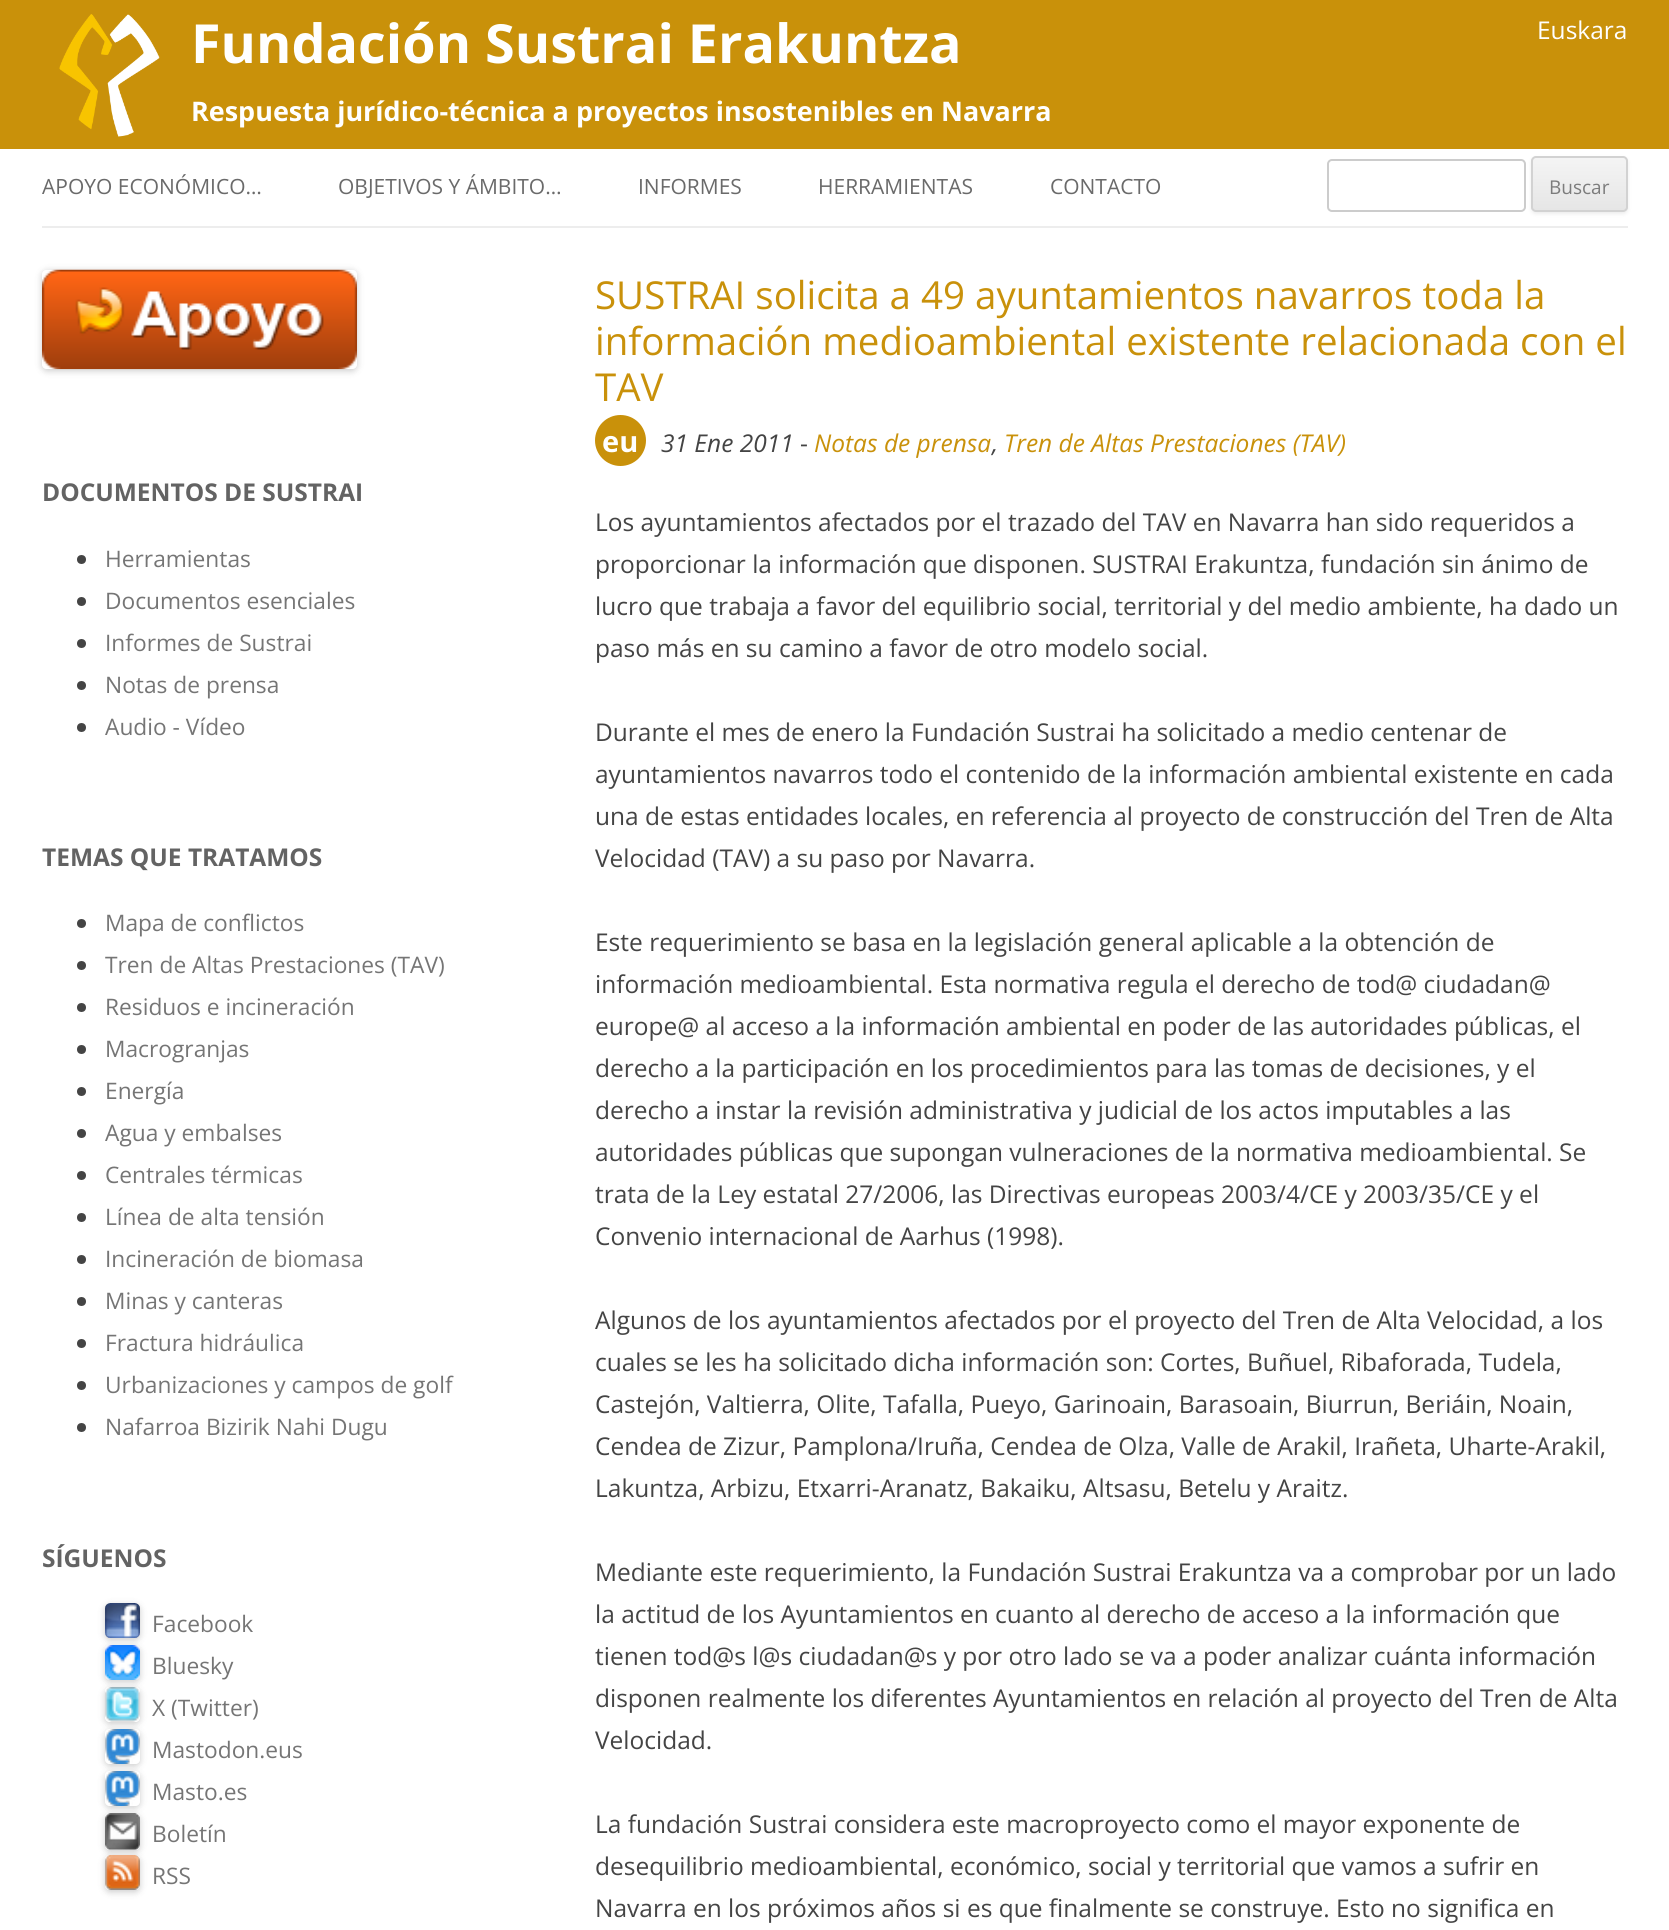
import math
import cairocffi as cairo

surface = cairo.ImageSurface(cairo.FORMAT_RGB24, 1669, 1930)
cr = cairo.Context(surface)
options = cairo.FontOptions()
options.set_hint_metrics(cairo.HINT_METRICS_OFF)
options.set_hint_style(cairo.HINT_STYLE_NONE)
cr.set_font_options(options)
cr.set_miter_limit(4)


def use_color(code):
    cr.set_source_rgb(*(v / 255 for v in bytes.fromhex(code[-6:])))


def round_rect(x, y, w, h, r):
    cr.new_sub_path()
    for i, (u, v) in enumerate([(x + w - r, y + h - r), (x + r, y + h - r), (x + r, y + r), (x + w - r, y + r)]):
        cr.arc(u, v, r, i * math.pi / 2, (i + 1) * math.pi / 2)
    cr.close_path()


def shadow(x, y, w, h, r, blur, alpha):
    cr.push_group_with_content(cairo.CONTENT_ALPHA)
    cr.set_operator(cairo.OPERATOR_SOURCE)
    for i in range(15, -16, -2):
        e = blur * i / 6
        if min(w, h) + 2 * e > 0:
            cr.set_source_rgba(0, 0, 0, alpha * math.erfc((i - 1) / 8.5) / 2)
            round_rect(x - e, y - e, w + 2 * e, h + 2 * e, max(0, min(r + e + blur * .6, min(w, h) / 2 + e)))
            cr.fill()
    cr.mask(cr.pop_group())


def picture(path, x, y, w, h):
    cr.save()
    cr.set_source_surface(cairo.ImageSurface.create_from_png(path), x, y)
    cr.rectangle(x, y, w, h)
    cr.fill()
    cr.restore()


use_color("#ffffff")
cr.paint()
use_color("#c9910a")
cr.rectangle(0, 0, 1669, 149)
cr.fill()
picture("img1.png", 59, 14, 101, 123)
cr.select_font_face("Open Sans", cairo.FONT_SLANT_NORMAL, cairo.FONT_WEIGHT_BOLD)
cr.set_font_size(53.9)
use_color("#ffffff")
cr.move_to(191, 63)
cr.show_text("Fundación Sustrai Erakuntza")
cr.set_font_size(26.95)
cr.move_to(191, 121)
cr.show_text("Respuesta jurídico-técnica a proyectos insostenibles en Navarra")
cr.select_font_face("Open Sans")
cr.set_font_size(24.5)
cr.move_to(1537, 39)
cr.show_text("Euskara")
use_color("#ededed")
cr.rectangle(42, 226, 1586, 2)
cr.fill()
cr.set_font_size(21)
use_color("#6a6a6a")
cr.move_to(42, 194)
cr.show_text("APOYO ECONÓMICO…")
cr.move_to(338, 194)
cr.show_text("OBJETIVOS Y ÁMBITO…")
cr.move_to(638, 194)
cr.show_text("INFORMES")
cr.move_to(818, 194)
cr.show_text("HERRAMIENTAS")
cr.move_to(1050, 194)
cr.show_text("CONTACTO")
round_rect(1328, 160, 197, 51, 4)
use_color("#cccccc")
cr.stroke()
use_color("#404040")
shadow(1531, 158, 97, 56, 5, 2, 0.1)
cr.save()
round_rect(1531, 156, 97, 56, 5)
cr.clip()
gradient = cairo.LinearGradient(1579, 158, 1579, 210)
gradient.add_color_stop_rgba(0, 0.957, 0.957, 0.957, 1)
gradient.add_color_stop_rgba(1, 0.902, 0.902, 0.902, 1)
cr.set_source(gradient)
cr.rectangle(1531, 158, 97, 52)
cr.fill()
cr.restore()
round_rect(1532, 157, 95, 54, 4)
use_color("#d2d2d2")
cr.stroke()
cr.set_font_size(19)
use_color("#7c7c7c")
cr.move_to(1549, 194)
cr.show_text("Buscar")
cr.save()
cr.set_fill_rule(cairo.FILL_RULE_EVEN_ODD)
cr.new_path()
cr.move_to(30, 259)
cr.line_to(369, 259)
cr.line_to(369, 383)
cr.line_to(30, 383)
cr.close_path()
cr.move_to(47, 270)
cr.line_to(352, 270)
cr.curve_to(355, 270, 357, 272, 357, 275)
cr.line_to(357, 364)
cr.curve_to(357, 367, 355, 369, 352, 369)
cr.line_to(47, 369)
cr.curve_to(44, 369, 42, 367, 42, 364)
cr.line_to(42, 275)
cr.curve_to(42, 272, 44, 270, 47, 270)
cr.close_path()
cr.clip()
use_color("#000000")
shadow(42, 271, 315, 100, 5, 3.5, 0.2)
cr.restore()
picture("img2.png", 42, 269, 315, 101)
cr.select_font_face("Open Sans", cairo.FONT_SLANT_NORMAL, cairo.FONT_WEIGHT_BOLD)
cr.set_font_size(24.5)
use_color("#636363")
cr.move_to(42, 501)
cr.show_text("DOCUMENTOS DE SUSTRAI")
use_color("#444444")
cr.new_path()
cr.arc(81.5, 559.5, 4.5, 0, 2 * math.pi)
cr.fill()
cr.select_font_face("Open Sans")
cr.set_font_size(22.75)
use_color("#757575")
cr.move_to(105, 567)
cr.show_text("Herramientas")
use_color("#444444")
cr.new_path()
cr.arc(81.5, 601.5, 4.5, 0, 2 * math.pi)
cr.fill()
use_color("#757575")
cr.move_to(105, 609)
cr.show_text("Documentos esenciales")
use_color("#444444")
cr.new_path()
cr.arc(81.5, 643.5, 4.5, 0, 2 * math.pi)
cr.fill()
use_color("#757575")
cr.move_to(105, 651)
cr.show_text("Informes de Sustrai")
use_color("#444444")
cr.new_path()
cr.arc(81.5, 685.5, 4.5, 0, 2 * math.pi)
cr.fill()
use_color("#757575")
cr.move_to(105, 693)
cr.show_text("Notas de prensa")
use_color("#444444")
cr.new_path()
cr.arc(81.5, 727.5, 4.5, 0, 2 * math.pi)
cr.fill()
use_color("#757575")
cr.move_to(105, 735)
cr.show_text("Audio - Vídeo")
cr.select_font_face("Open Sans", cairo.FONT_SLANT_NORMAL, cairo.FONT_WEIGHT_BOLD)
cr.set_font_size(24.5)
use_color("#636363")
cr.move_to(42, 866)
cr.show_text("TEMAS QUE TRATAMOS")
use_color("#444444")
cr.new_path()
cr.arc(81.5, 923.5, 4.5, 0, 2 * math.pi)
cr.fill()
cr.select_font_face("Open Sans")
cr.set_font_size(22.75)
use_color("#757575")
cr.move_to(105, 931)
cr.show_text("Mapa de conflictos")
use_color("#444444")
cr.new_path()
cr.arc(81.5, 965.5, 4.5, 0, 2 * math.pi)
cr.fill()
use_color("#757575")
cr.move_to(105, 973)
cr.show_text("Tren de Altas Prestaciones (TAV)")
use_color("#444444")
cr.new_path()
cr.arc(81.5, 1007.5, 4.5, 0, 2 * math.pi)
cr.fill()
use_color("#757575")
cr.move_to(105, 1015)
cr.show_text("Residuos e incineración")
use_color("#444444")
cr.new_path()
cr.arc(81.5, 1049.5, 4.5, 0, 2 * math.pi)
cr.fill()
use_color("#757575")
cr.move_to(105, 1057)
cr.show_text("Macrogranjas")
use_color("#444444")
cr.new_path()
cr.arc(81.5, 1091.5, 4.5, 0, 2 * math.pi)
cr.fill()
use_color("#757575")
cr.move_to(105, 1099)
cr.show_text("Energía")
use_color("#444444")
cr.new_path()
cr.arc(81.5, 1133.5, 4.5, 0, 2 * math.pi)
cr.fill()
use_color("#757575")
cr.move_to(105, 1141)
cr.show_text("Agua y embalses")
use_color("#444444")
cr.new_path()
cr.arc(81.5, 1175.5, 4.5, 0, 2 * math.pi)
cr.fill()
use_color("#757575")
cr.move_to(105, 1183)
cr.show_text("Centrales térmicas")
use_color("#444444")
cr.new_path()
cr.arc(81.5, 1217.5, 4.5, 0, 2 * math.pi)
cr.fill()
use_color("#757575")
cr.move_to(105, 1225)
cr.show_text("Línea de alta tensión")
use_color("#444444")
cr.new_path()
cr.arc(81.5, 1259.5, 4.5, 0, 2 * math.pi)
cr.fill()
use_color("#757575")
cr.move_to(105, 1267)
cr.show_text("Incineración de biomasa")
use_color("#444444")
cr.new_path()
cr.arc(81.5, 1301.5, 4.5, 0, 2 * math.pi)
cr.fill()
use_color("#757575")
cr.move_to(105, 1309)
cr.show_text("Minas y canteras")
use_color("#444444")
cr.new_path()
cr.arc(81.5, 1343.5, 4.5, 0, 2 * math.pi)
cr.fill()
use_color("#757575")
cr.move_to(105, 1351)
cr.show_text("Fractura hidráulica")
use_color("#444444")
cr.new_path()
cr.arc(81.5, 1385.5, 4.5, 0, 2 * math.pi)
cr.fill()
use_color("#757575")
cr.move_to(105, 1393)
cr.show_text("Urbanizaciones y campos de golf")
use_color("#444444")
cr.new_path()
cr.arc(81.5, 1427.5, 4.5, 0, 2 * math.pi)
cr.fill()
use_color("#757575")
cr.move_to(105, 1435)
cr.show_text("Nafarroa Bizirik Nahi Dugu")
cr.select_font_face("Open Sans", cairo.FONT_SLANT_NORMAL, cairo.FONT_WEIGHT_BOLD)
cr.set_font_size(24.5)
use_color("#636363")
cr.move_to(42, 1567)
cr.show_text("SÍGUENOS")
use_color("#000000")
shadow(105, 1605, 35, 35, 5, 3.5, 0.2)
picture("img3.png", 105, 1603, 35, 35)
cr.select_font_face("Open Sans")
cr.set_font_size(22.75)
use_color("#757575")
cr.move_to(152, 1632)
cr.show_text("Facebook")
use_color("#000000")
shadow(105, 1647, 35, 35, 5, 3.5, 0.2)
picture("img4.png", 105, 1645, 35, 35)
use_color("#757575")
cr.move_to(152, 1674)
cr.show_text("Bluesky")
cr.save()
cr.set_fill_rule(cairo.FILL_RULE_EVEN_ODD)
cr.new_path()
cr.move_to(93, 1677)
cr.line_to(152, 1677)
cr.line_to(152, 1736)
cr.line_to(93, 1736)
cr.close_path()
cr.move_to(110, 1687)
cr.line_to(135, 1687)
cr.curve_to(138, 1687, 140, 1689, 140, 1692)
cr.line_to(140, 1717)
cr.curve_to(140, 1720, 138, 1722, 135, 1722)
cr.line_to(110, 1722)
cr.curve_to(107, 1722, 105, 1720, 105, 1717)
cr.line_to(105, 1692)
cr.curve_to(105, 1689, 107, 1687, 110, 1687)
cr.close_path()
cr.clip()
use_color("#000000")
shadow(105, 1689, 35, 35, 5, 3.5, 0.2)
cr.restore()
picture("img5.png", 105, 1687, 35, 35)
cr.save()
cr.set_fill_rule(cairo.FILL_RULE_EVEN_ODD)
cr.new_path()
cr.move_to(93, 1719)
cr.line_to(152, 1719)
cr.line_to(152, 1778)
cr.line_to(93, 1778)
cr.close_path()
cr.move_to(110, 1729)
cr.line_to(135, 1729)
cr.curve_to(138, 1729, 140, 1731, 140, 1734)
cr.line_to(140, 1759)
cr.curve_to(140, 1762, 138, 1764, 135, 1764)
cr.line_to(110, 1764)
cr.curve_to(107, 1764, 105, 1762, 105, 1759)
cr.line_to(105, 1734)
cr.curve_to(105, 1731, 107, 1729, 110, 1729)
cr.close_path()
cr.clip()
use_color("#000000")
shadow(105, 1731, 35, 35, 5, 3.5, 0.2)
cr.restore()
cr.move_to(152, 1716)
cr.show_text("X (Twitter)")
picture("img6.png", 105, 1729, 35, 35)
cr.move_to(152, 1758)
cr.show_text("Mastodon.eus")
cr.save()
cr.set_fill_rule(cairo.FILL_RULE_EVEN_ODD)
cr.new_path()
cr.move_to(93, 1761)
cr.line_to(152, 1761)
cr.line_to(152, 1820)
cr.line_to(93, 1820)
cr.close_path()
cr.move_to(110, 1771)
cr.line_to(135, 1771)
cr.curve_to(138, 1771, 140, 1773, 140, 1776)
cr.line_to(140, 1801)
cr.curve_to(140, 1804, 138, 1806, 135, 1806)
cr.line_to(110, 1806)
cr.curve_to(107, 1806, 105, 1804, 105, 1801)
cr.line_to(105, 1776)
cr.curve_to(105, 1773, 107, 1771, 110, 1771)
cr.close_path()
cr.clip()
use_color("#000000")
shadow(105, 1773, 35, 35, 5, 3.5, 0.2)
cr.restore()
picture("img6.png", 105, 1771, 35, 35)
cr.move_to(152, 1800)
cr.show_text("Masto.es")
cr.save()
cr.set_fill_rule(cairo.FILL_RULE_EVEN_ODD)
cr.new_path()
cr.move_to(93, 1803)
cr.line_to(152, 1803)
cr.line_to(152, 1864)
cr.line_to(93, 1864)
cr.close_path()
cr.move_to(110, 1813)
cr.line_to(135, 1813)
cr.curve_to(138, 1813, 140, 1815, 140, 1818)
cr.line_to(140, 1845)
cr.curve_to(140, 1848, 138, 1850, 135, 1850)
cr.line_to(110, 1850)
cr.curve_to(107, 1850, 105, 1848, 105, 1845)
cr.line_to(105, 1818)
cr.curve_to(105, 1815, 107, 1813, 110, 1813)
cr.close_path()
cr.clip()
use_color("#000000")
shadow(105, 1815, 35, 37, 5, 3.5, 0.2)
cr.restore()
picture("img7.png", 105, 1813, 35, 37)
cr.move_to(152, 1842)
cr.show_text("Boletín")
cr.save()
cr.set_fill_rule(cairo.FILL_RULE_EVEN_ODD)
cr.new_path()
cr.move_to(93, 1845)
cr.line_to(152, 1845)
cr.line_to(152, 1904)
cr.line_to(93, 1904)
cr.close_path()
cr.move_to(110, 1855)
cr.line_to(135, 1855)
cr.curve_to(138, 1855, 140, 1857, 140, 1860)
cr.line_to(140, 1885)
cr.curve_to(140, 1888, 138, 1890, 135, 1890)
cr.line_to(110, 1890)
cr.curve_to(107, 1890, 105, 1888, 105, 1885)
cr.line_to(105, 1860)
cr.curve_to(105, 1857, 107, 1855, 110, 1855)
cr.close_path()
cr.clip()
use_color("#000000")
shadow(105, 1857, 35, 35, 5, 3.5, 0.2)
cr.restore()
picture("img8.png", 105, 1855, 35, 35)
cr.move_to(152, 1884)
cr.show_text("RSS")
cr.set_font_size(38.5)
use_color("#c9910a")
cr.move_to(595, 309)
cr.show_text("SUSTRAI solicita a 49 ayuntamientos navarros toda la")
cr.move_to(595, 355)
cr.show_text("información medioambiental existente relacionada con el")
cr.move_to(595, 401)
cr.show_text("TAV")
cr.new_path()
cr.arc(620.5, 440.5, 25.5, 0, 2 * math.pi)
cr.fill()
cr.select_font_face("Open Sans", cairo.FONT_SLANT_NORMAL, cairo.FONT_WEIGHT_BOLD)
cr.set_font_size(29)
use_color("#ffffff")
cr.move_to(602, 452)
cr.show_text("eu")
cr.select_font_face("Open Sans", cairo.FONT_SLANT_ITALIC)
cr.set_font_size(24.5)
use_color("#444444")
cr.move_to(661, 452)
cr.show_text("31 Ene 2011")
cr.select_font_face("Open Sans")
cr.move_to(800, 452)
cr.show_text("-")
cr.select_font_face("Open Sans", cairo.FONT_SLANT_ITALIC)
use_color("#c9910a")
cr.move_to(814, 452)
cr.show_text("Notas de prensa")
cr.move_to(1004, 452)
cr.show_text("Tren de Altas Prestaciones (TAV)")
use_color("#444444")
cr.move_to(992, 452)
cr.show_text(",")
cr.select_font_face("Open Sans")
cr.move_to(595, 531)
cr.show_text("Los ayuntamientos afectados por el trazado del TAV en Navarra han sido requeridos a")
cr.move_to(595, 573)
cr.show_text("proporcionar la información que disponen. SUSTRAI Erakuntza, fundación sin ánimo de")
cr.move_to(595, 615)
cr.show_text("lucro que trabaja a favor del equilibrio social, territorial y del medio ambiente, ha dado un")
cr.move_to(595, 657)
cr.show_text("paso más en su camino a favor de otro modelo social.")
cr.move_to(595, 741)
cr.show_text("Durante el mes de enero la Fundación Sustrai ha solicitado a medio centenar de")
cr.move_to(595, 783)
cr.show_text("ayuntamientos navarros todo el contenido de la información ambiental existente en cada")
cr.move_to(595, 825)
cr.show_text("una de estas entidades locales, en referencia al proyecto de construcción del Tren de Alta")
cr.move_to(595, 867)
cr.show_text("Velocidad (TAV) a su paso por Navarra.")
cr.move_to(595, 951)
cr.show_text("Este requerimiento se basa en la legislación general aplicable a la obtención de")
cr.move_to(595, 993)
cr.show_text("información medioambiental. Esta normativa regula el derecho de tod@ ciudadan@")
cr.move_to(595, 1035)
cr.show_text("europe@ al acceso a la información ambiental en poder de las autoridades públicas, el")
cr.move_to(595, 1077)
cr.show_text("derecho a la participación en los procedimientos para las tomas de decisiones, y el")
cr.move_to(595, 1119)
cr.show_text("derecho a instar la revisión administrativa y judicial de los actos imputables a las")
cr.move_to(595, 1161)
cr.show_text("autoridades públicas que supongan vulneraciones de la normativa medioambiental. Se")
cr.move_to(595, 1203)
cr.show_text("trata de la Ley estatal 27/2006, las Directivas europeas 2003/4/CE y 2003/35/CE y el")
cr.move_to(595, 1245)
cr.show_text("Convenio internacional de Aarhus (1998).")
cr.move_to(595, 1329)
cr.show_text("Algunos de los ayuntamientos afectados por el proyecto del Tren de Alta Velocidad, a los")
cr.move_to(595, 1371)
cr.show_text("cuales se les ha solicitado dicha información son: Cortes, Buñuel, Ribaforada, Tudela,")
cr.move_to(595, 1413)
cr.show_text("Castejón, Valtierra, Olite, Tafalla, Pueyo, Garinoain, Barasoain, Biurrun, Beriáin, Noain,")
cr.move_to(595, 1455)
cr.show_text("Cendea de Zizur, Pamplona/Iruña, Cendea de Olza, Valle de Arakil, Irañeta, Uharte-Arakil,")
cr.move_to(595, 1497)
cr.show_text("Lakuntza, Arbizu, Etxarri-Aranatz, Bakaiku, Altsasu, Betelu y Araitz.")
cr.move_to(595, 1581)
cr.show_text("Mediante este requerimiento, la Fundación Sustrai Erakuntza va a comprobar por un lado")
cr.move_to(595, 1623)
cr.show_text("la actitud de los Ayuntamientos en cuanto al derecho de acceso a la información que")
cr.move_to(595, 1665)
cr.show_text("tienen tod@s l@s ciudadan@s y por otro lado se va a poder analizar cuánta información")
cr.move_to(595, 1707)
cr.show_text("disponen realmente los diferentes Ayuntamientos en relación al proyecto del Tren de Alta")
cr.move_to(595, 1749)
cr.show_text("Velocidad.")
cr.move_to(595, 1833)
cr.show_text("La fundación Sustrai considera este macroproyecto como el mayor exponente de")
cr.move_to(595, 1875)
cr.show_text("desequilibrio medioambiental, económico, social y territorial que vamos a sufrir en")
cr.move_to(595, 1917)
cr.show_text("Navarra en los próximos años si es que finalmente se construye. Esto no significa en")
surface.write_to_png("result.png")
